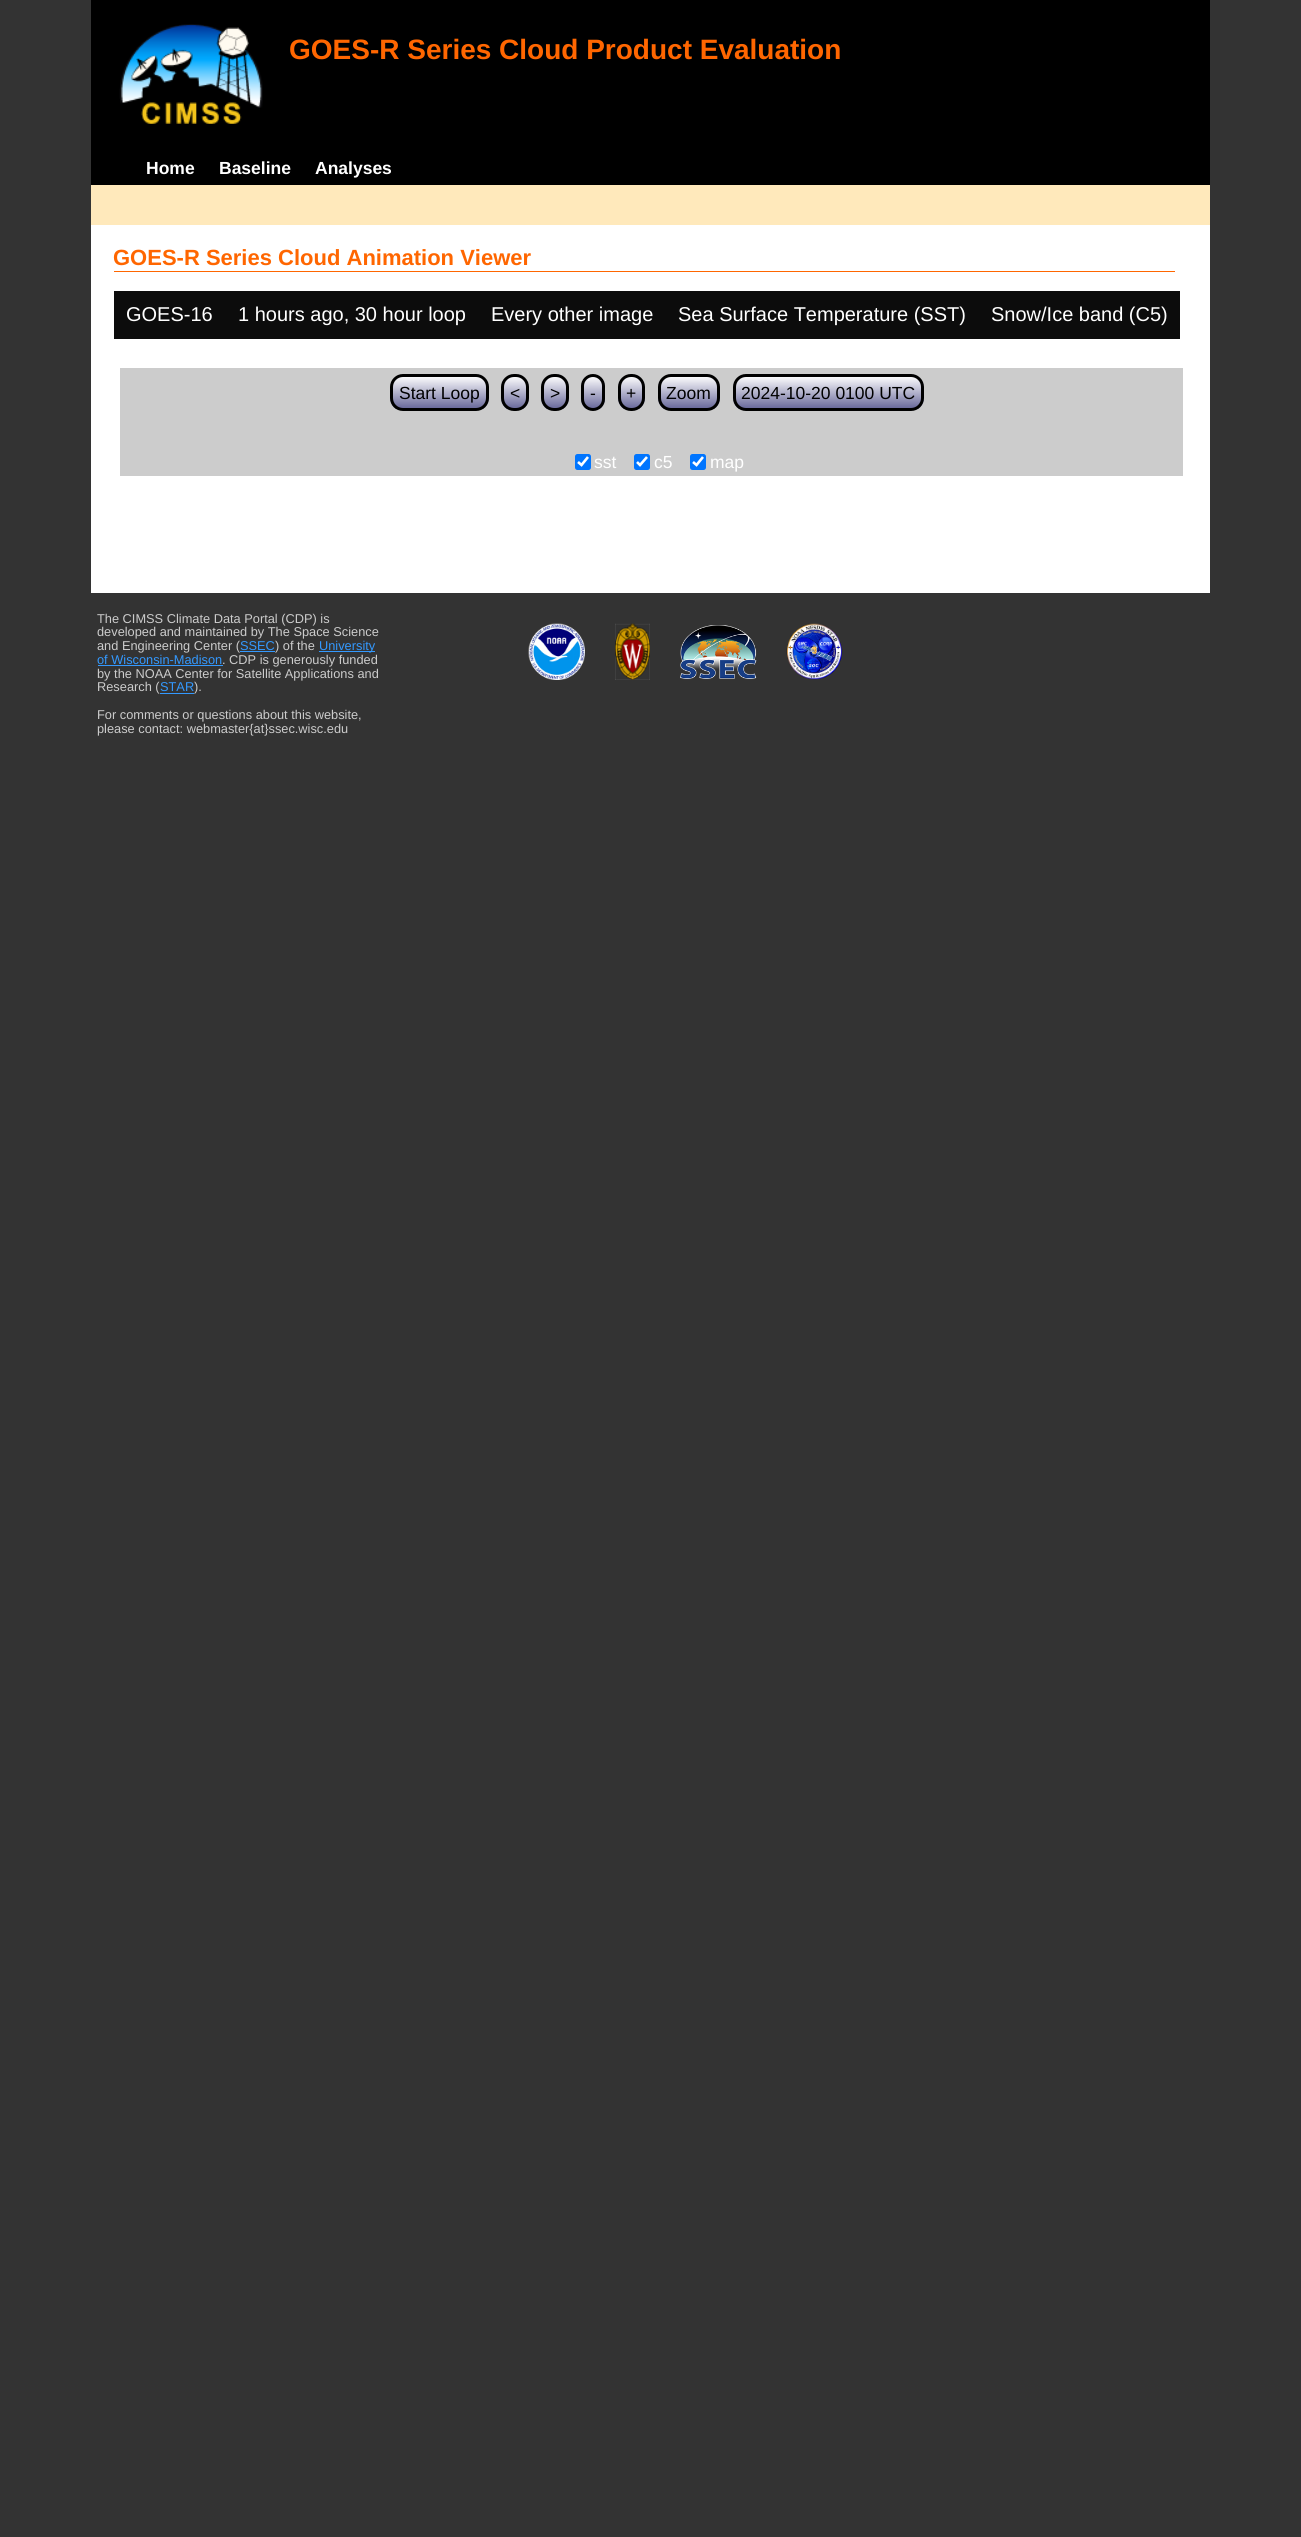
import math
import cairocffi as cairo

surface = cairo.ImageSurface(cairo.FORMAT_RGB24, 1301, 2537)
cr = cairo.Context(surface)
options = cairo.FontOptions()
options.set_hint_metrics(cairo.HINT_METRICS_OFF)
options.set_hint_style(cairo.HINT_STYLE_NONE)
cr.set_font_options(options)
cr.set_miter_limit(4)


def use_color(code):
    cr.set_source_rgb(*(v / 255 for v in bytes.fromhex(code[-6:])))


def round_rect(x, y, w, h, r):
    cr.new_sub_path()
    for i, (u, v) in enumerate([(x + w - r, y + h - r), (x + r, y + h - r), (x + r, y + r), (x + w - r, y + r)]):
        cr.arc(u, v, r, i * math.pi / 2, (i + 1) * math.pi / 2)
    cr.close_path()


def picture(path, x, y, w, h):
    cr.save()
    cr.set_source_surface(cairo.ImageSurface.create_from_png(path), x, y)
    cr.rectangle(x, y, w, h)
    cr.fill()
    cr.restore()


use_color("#333333")
cr.paint()
use_color("#000000")
cr.rectangle(91, 0, 1119, 185)
cr.fill()
picture("img1.png", 119, 24, 144, 100)
cr.select_font_face("Liberation Sans", cairo.FONT_SLANT_NORMAL, cairo.FONT_WEIGHT_BOLD)
cr.set_font_size(28)
use_color("#ff6600")
cr.move_to(289, 59)
cr.show_text("GOES-R Series Cloud Product Evaluation")
cr.set_font_size(17.5)
use_color("#ffffff")
cr.move_to(146, 174)
cr.show_text("Home")
cr.move_to(219, 174)
cr.show_text("Baseline")
cr.move_to(315, 174)
cr.show_text("Analyses")
use_color("#ffe9bb")
cr.rectangle(91, 185, 1119, 40)
cr.fill()
use_color("#ffffff")
cr.rectangle(91, 225, 1119, 368)
cr.fill()
use_color("#ff6600")
cr.rectangle(114, 271, 1061, 1)
cr.fill()
cr.set_font_size(22)
cr.move_to(113, 265)
cr.show_text("GOES-R Series Cloud Animation Viewer")
use_color("#0c0c0c")
cr.rectangle(114, 291, 1066, 48)
cr.fill()
cr.select_font_face("Liberation Sans")
cr.set_font_size(20)
use_color("#ffffff")
cr.move_to(126, 321)
cr.show_text("GOES-16")
cr.move_to(238, 321)
cr.show_text("1 hours ago, 30 hour loop")
cr.move_to(491, 321)
cr.show_text("Every other image")
cr.move_to(678, 321)
cr.show_text("Sea Surface Temperature (SST)")
cr.move_to(991, 321)
cr.show_text("Snow/Ice band (C5)")
use_color("#cccccc")
cr.rectangle(120, 368, 1063, 50)
cr.fill()
cr.save()
round_rect(390, 374, 99, 37, 13)
cr.clip()
gradient = cairo.LinearGradient(439, 376, 439, 409)
gradient.add_color_stop_rgba(0, 1, 1, 1, 1)
gradient.add_color_stop_rgba(1, 0.4, 0.4, 0.6, 1)
cr.set_source(gradient)
cr.rectangle(390, 376, 99, 33)
cr.fill()
cr.restore()
round_rect(391.5, 375.5, 96, 34, 11.5)
use_color("#000000")
cr.set_line_width(3)
cr.stroke()
cr.set_font_size(17.5)
cr.move_to(399, 399)
cr.show_text("Start Loop")
cr.save()
round_rect(501, 374, 28, 37, 13)
cr.clip()
gradient = cairo.LinearGradient(515, 376, 515, 409)
gradient.add_color_stop_rgba(0, 1, 1, 1, 1)
gradient.add_color_stop_rgba(1, 0.4, 0.4, 0.6, 1)
cr.set_source(gradient)
cr.rectangle(501, 376, 28, 33)
cr.fill()
cr.restore()
round_rect(502.5, 375.5, 25, 34, 11.5)
cr.stroke()
cr.move_to(510, 399)
cr.show_text("<")
cr.save()
round_rect(541, 374, 28, 37, 13)
cr.clip()
gradient = cairo.LinearGradient(555, 376, 555, 409)
gradient.add_color_stop_rgba(0, 1, 1, 1, 1)
gradient.add_color_stop_rgba(1, 0.4, 0.4, 0.6, 1)
cr.set_source(gradient)
cr.rectangle(541, 376, 28, 33)
cr.fill()
cr.restore()
round_rect(542.5, 375.5, 25, 34, 11.5)
cr.stroke()
cr.move_to(550, 399)
cr.show_text(">")
cr.save()
round_rect(581, 374, 24, 37, 12)
cr.clip()
gradient = cairo.LinearGradient(593, 376, 593, 409)
gradient.add_color_stop_rgba(0, 1, 1, 1, 1)
gradient.add_color_stop_rgba(1, 0.4, 0.4, 0.6, 1)
cr.set_source(gradient)
cr.rectangle(581, 376, 24, 33)
cr.fill()
cr.restore()
round_rect(582.5, 375.5, 21, 34, 10.5)
cr.stroke()
cr.move_to(590, 399)
cr.show_text("-")
cr.save()
round_rect(618, 374, 27, 37, 13)
cr.clip()
gradient = cairo.LinearGradient(631, 376, 631, 409)
gradient.add_color_stop_rgba(0, 1, 1, 1, 1)
gradient.add_color_stop_rgba(1, 0.4, 0.4, 0.6, 1)
cr.set_source(gradient)
cr.rectangle(618, 376, 27, 33)
cr.fill()
cr.restore()
round_rect(619.5, 375.5, 24, 34, 11.5)
cr.stroke()
cr.move_to(626, 399)
cr.show_text("+")
cr.save()
round_rect(658, 374, 62, 37, 13)
cr.clip()
gradient = cairo.LinearGradient(689, 376, 689, 409)
gradient.add_color_stop_rgba(0, 1, 1, 1, 1)
gradient.add_color_stop_rgba(1, 0.4, 0.4, 0.6, 1)
cr.set_source(gradient)
cr.rectangle(658, 376, 62, 33)
cr.fill()
cr.restore()
round_rect(659.5, 375.5, 59, 34, 11.5)
cr.stroke()
cr.move_to(666, 399)
cr.show_text("Zoom")
cr.save()
round_rect(733, 374, 191, 37, 13)
cr.clip()
gradient = cairo.LinearGradient(828, 376, 828, 409)
gradient.add_color_stop_rgba(0, 1, 1, 1, 1)
gradient.add_color_stop_rgba(1, 0.4, 0.4, 0.6, 1)
cr.set_source(gradient)
cr.rectangle(733, 376, 191, 33)
cr.fill()
cr.restore()
round_rect(734.5, 375.5, 188, 34, 11.5)
cr.stroke()
cr.move_to(741, 399)
cr.show_text("2024-10-20 0100 UTC")
use_color("#cccccc")
cr.rectangle(120, 418, 1063, 58)
cr.fill()
use_color("#0075ff")
round_rect(575, 454, 16, 16, 2.5)
cr.fill()
cr.new_path()
cr.move_to(578, 462)
cr.line_to(581.5, 465)
cr.line_to(588, 457)
use_color("#ffffff")
cr.set_line_width(2.6)
cr.stroke()
cr.move_to(594, 468)
cr.show_text("sst")
use_color("#0075ff")
round_rect(634, 454, 16, 16, 2.5)
cr.fill()
cr.new_path()
cr.move_to(637, 462)
cr.line_to(640, 465)
cr.line_to(647, 457)
use_color("#ffffff")
cr.stroke()
cr.move_to(654, 468)
cr.show_text("c5")
use_color("#0075ff")
round_rect(690, 454, 16, 16, 2.5)
cr.fill()
cr.new_path()
cr.move_to(693, 462)
cr.line_to(696.5, 465)
cr.line_to(703, 457)
use_color("#ffffff")
cr.stroke()
cr.move_to(710, 468)
cr.show_text("map")
cr.set_font_size(12.8)
use_color("#cccccc")
cr.move_to(97, 623)
cr.show_text("The CIMSS Climate Data Portal (CDP) is")
cr.move_to(97, 636)
cr.show_text("developed and maintained by The Space Science")
cr.move_to(97, 650)
cr.show_text("and Engineering Center (")
use_color("#3399ff")
cr.move_to(240, 650)
cr.show_text("SSEC")
cr.rectangle(240, 651, 35, 1)
cr.fill()
use_color("#cccccc")
cr.move_to(275, 650)
cr.show_text(") of the")
use_color("#3399ff")
cr.rectangle(319, 651, 56, 1)
cr.fill()
cr.move_to(319, 650)
cr.show_text("University")
cr.move_to(97, 664)
cr.show_text("of Wisconsin-Madison")
cr.rectangle(98, 665, 125, 1)
cr.fill()
use_color("#cccccc")
cr.move_to(222, 664)
cr.show_text(". CDP is generously funded")
cr.move_to(97, 678)
cr.show_text("by the NOAA Center for Satellite Applications and")
cr.move_to(97, 691)
cr.show_text("Research (")
use_color("#3399ff")
cr.move_to(160, 691)
cr.show_text("STAR")
cr.rectangle(160, 693, 34, 1)
cr.fill()
use_color("#cccccc")
cr.move_to(194, 691)
cr.show_text(").")
cr.move_to(97, 719)
cr.show_text("For comments or questions about this website,")
cr.move_to(97, 733)
cr.show_text("please contact: webmaster{at}ssec.wisc.edu")
picture("img2.png", 528, 623, 57, 57)
picture("img3.png", 615, 623, 35, 57)
picture("img4.png", 680, 625, 77, 54)
picture("img5.png", 786, 623, 57, 57)
surface.write_to_png("result.png")
